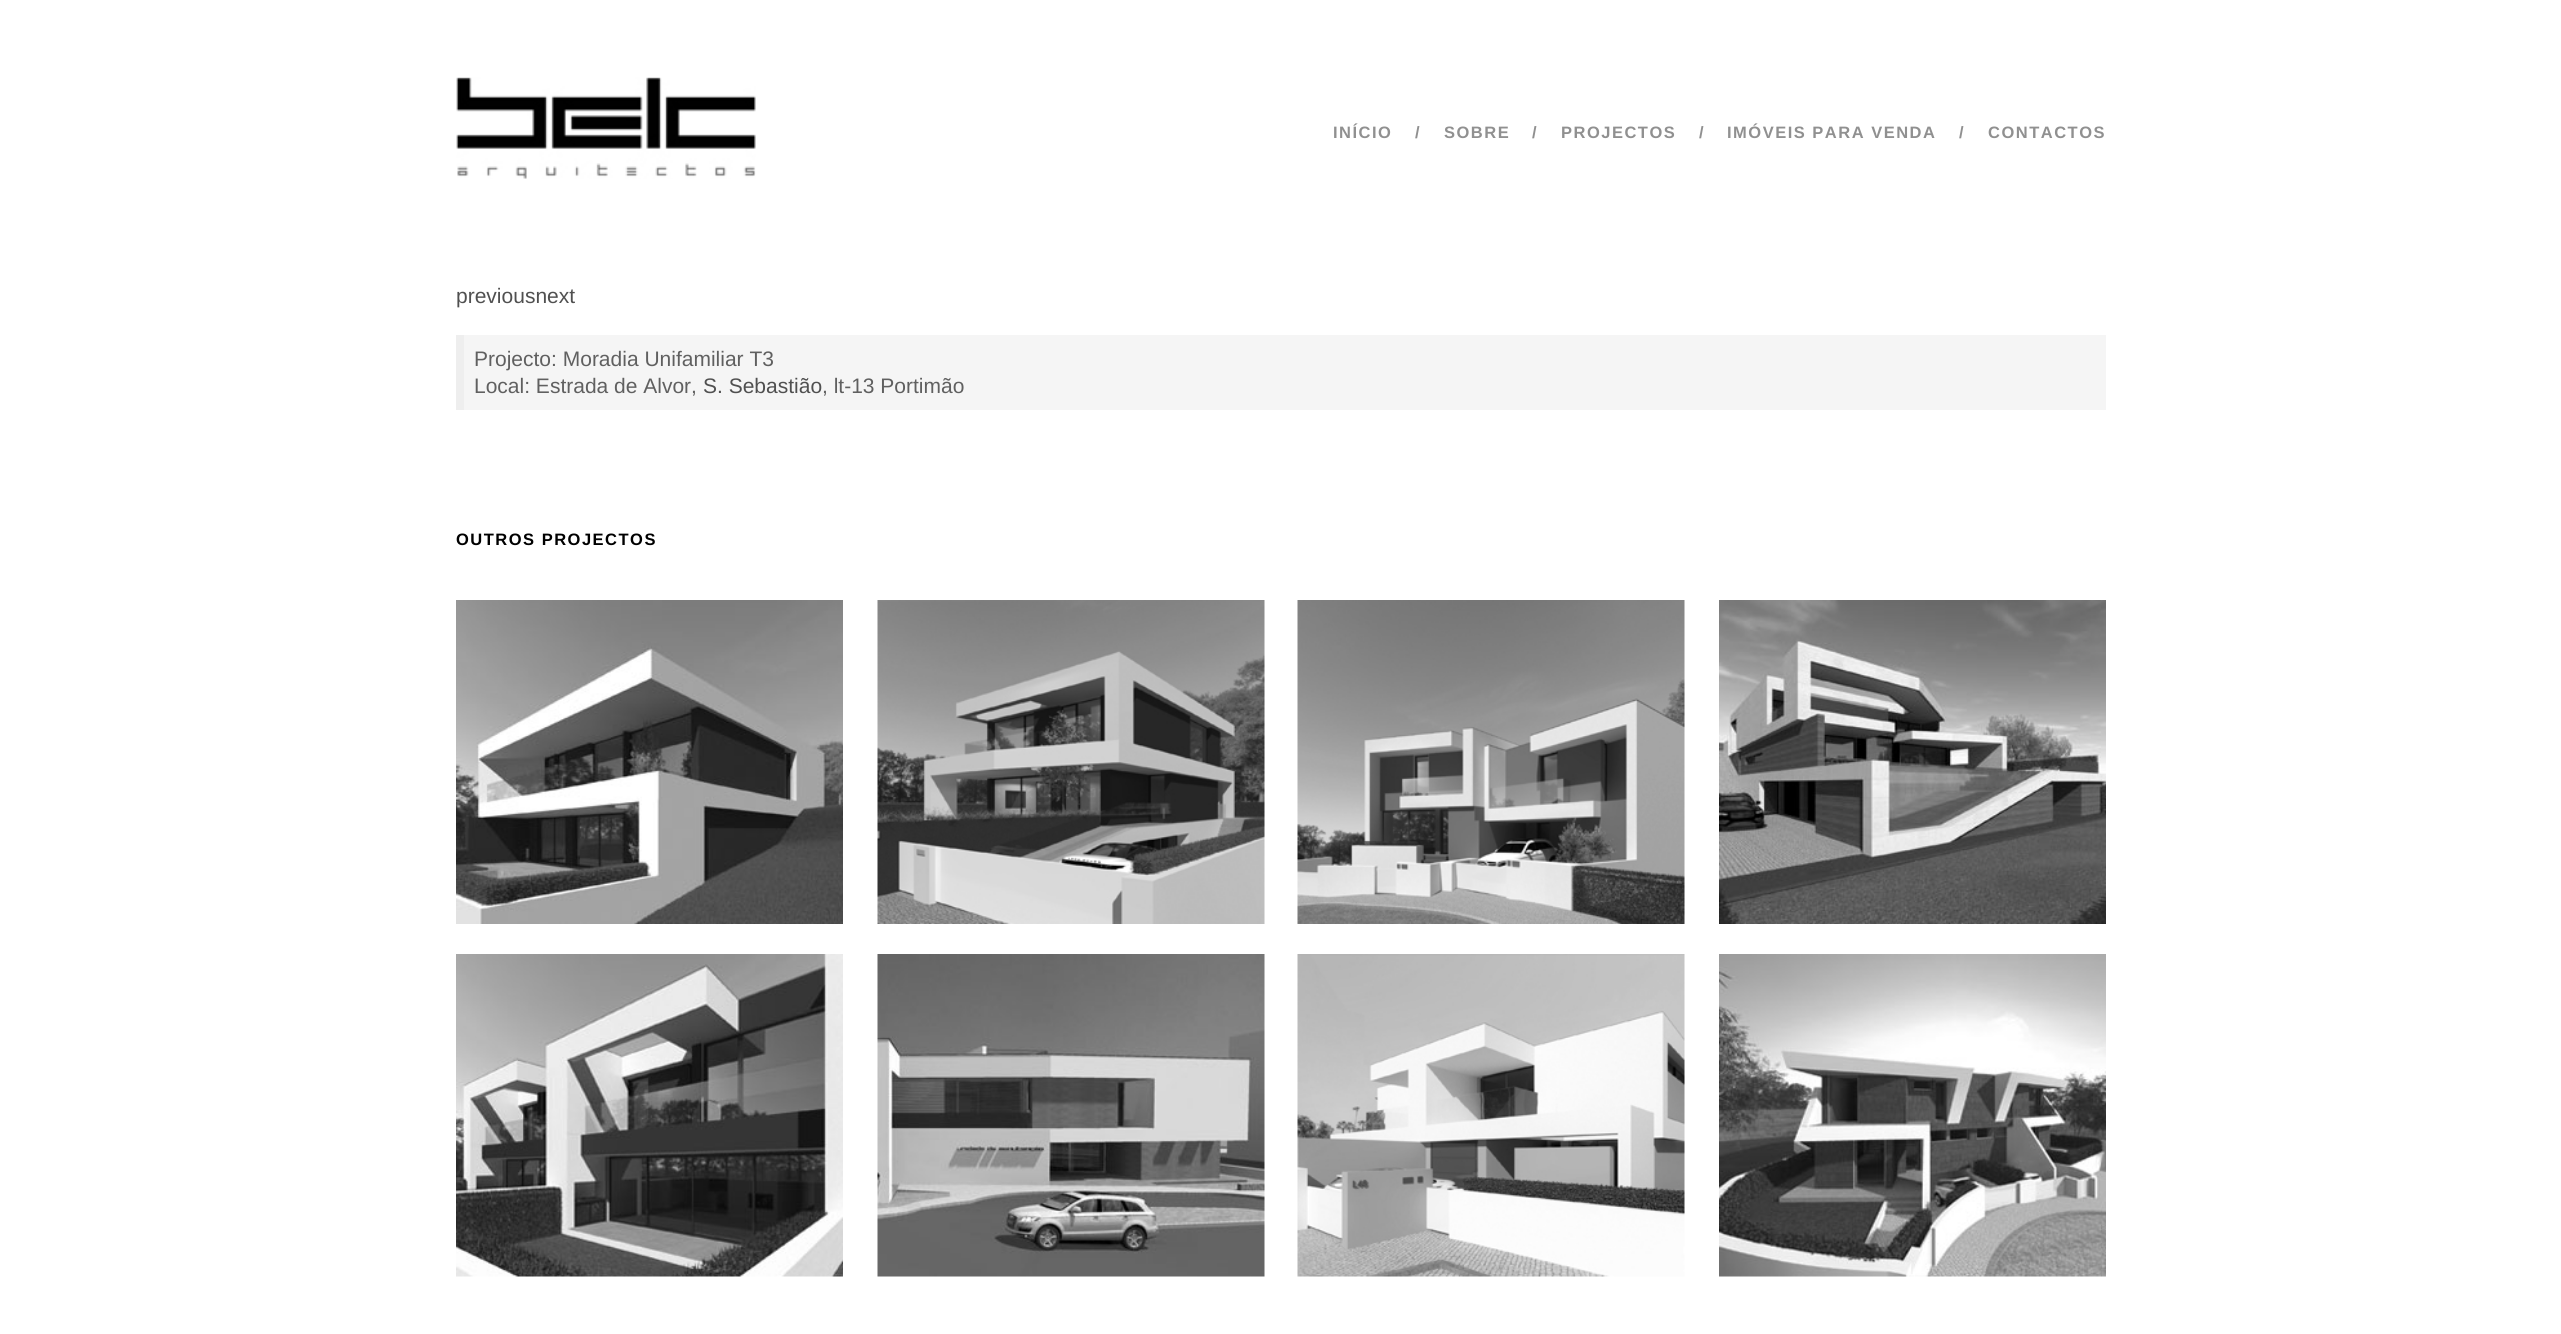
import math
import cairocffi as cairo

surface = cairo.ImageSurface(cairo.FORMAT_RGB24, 2561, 1334)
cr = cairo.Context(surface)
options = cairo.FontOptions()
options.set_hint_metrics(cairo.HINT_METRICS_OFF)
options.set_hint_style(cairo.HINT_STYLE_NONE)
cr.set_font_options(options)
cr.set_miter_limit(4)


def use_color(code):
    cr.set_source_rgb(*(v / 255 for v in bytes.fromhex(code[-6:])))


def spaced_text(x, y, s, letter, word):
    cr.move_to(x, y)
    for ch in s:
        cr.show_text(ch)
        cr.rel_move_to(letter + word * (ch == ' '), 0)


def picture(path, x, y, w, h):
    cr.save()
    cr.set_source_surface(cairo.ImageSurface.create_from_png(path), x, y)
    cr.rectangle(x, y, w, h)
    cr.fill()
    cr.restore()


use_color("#ffffff")
cr.paint()
picture("img1.png", 456, 77, 300, 102)
cr.select_font_face("Liberation Sans", cairo.FONT_SLANT_NORMAL, cairo.FONT_WEIGHT_BOLD)
cr.set_font_size(16.5)
use_color("#909090")
spaced_text(1333, 138, "INÍCIO", 1.5, 0)
spaced_text(1415, 138, "/", 1.5, 0)
spaced_text(1444, 138, "SOBRE", 1.5, 0)
spaced_text(1532, 138, "/", 1.5, 0)
spaced_text(1561, 138, "PROJECTOS", 1.5, 0)
spaced_text(1699, 138, "/", 1.5, 0)
spaced_text(1727, 138, "IMÓVEIS PARA VENDA", 1.5, 0)
spaced_text(1959, 138, "/", 1.5, 0)
spaced_text(1988, 138, "CONTACTOS", 1.5, 0)
cr.select_font_face("Liberation Sans")
cr.set_font_size(21)
use_color("#505050")
cr.move_to(456, 303)
cr.show_text("previousnext")
use_color("#f5f5f5")
cr.rectangle(464, 335, 1642, 75)
cr.fill()
use_color("#eeeeee")
cr.rectangle(456, 335, 8, 75)
cr.fill()
use_color("#606060")
cr.move_to(474, 366)
cr.show_text("Projecto: Moradia Unifamiliar T3")
cr.move_to(474, 393)
cr.show_text("Local: Estrada de Alvor,")
use_color("#505050")
cr.move_to(703, 393)
cr.show_text("S. Sebastião")
use_color("#606060")
cr.move_to(822, 393)
cr.show_text(", lt-13 Portimão")
cr.select_font_face("Liberation Sans", cairo.FONT_SLANT_NORMAL, cairo.FONT_WEIGHT_BOLD)
cr.set_font_size(16.5)
use_color("#000000")
spaced_text(456, 545, "OUTROS PROJECTOS", 1.5, 0)
picture("img2.png", 456, 600, 387, 324)
picture("img3.png", 877, 600, 388, 324)
picture("img4.png", 1297, 600, 388, 324)
picture("img5.png", 1719, 600, 387, 324)
picture("img6.png", 456, 954, 387, 323)
picture("img7.png", 877, 954, 388, 323)
picture("img8.png", 1297, 954, 388, 323)
picture("img9.png", 1719, 954, 387, 323)
surface.write_to_png("result.png")
